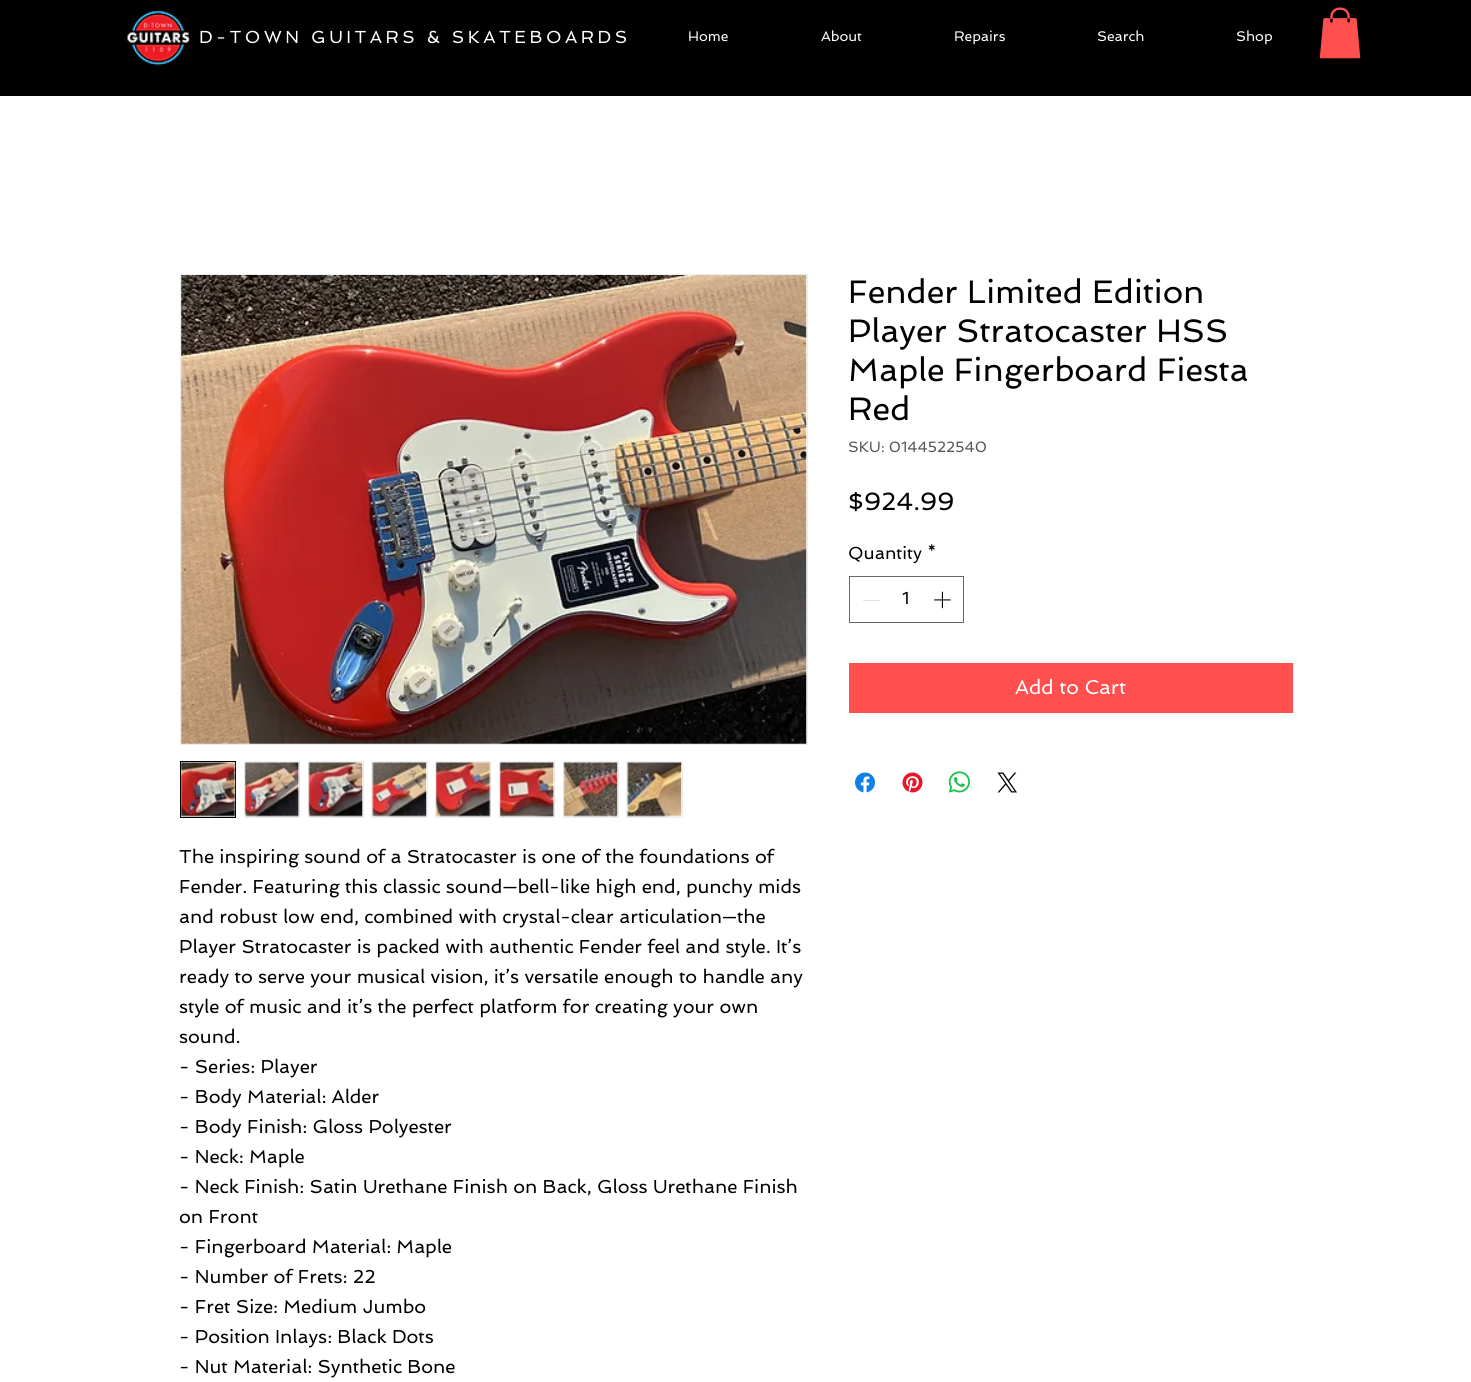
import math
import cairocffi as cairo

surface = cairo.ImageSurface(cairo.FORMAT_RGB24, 1471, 1382)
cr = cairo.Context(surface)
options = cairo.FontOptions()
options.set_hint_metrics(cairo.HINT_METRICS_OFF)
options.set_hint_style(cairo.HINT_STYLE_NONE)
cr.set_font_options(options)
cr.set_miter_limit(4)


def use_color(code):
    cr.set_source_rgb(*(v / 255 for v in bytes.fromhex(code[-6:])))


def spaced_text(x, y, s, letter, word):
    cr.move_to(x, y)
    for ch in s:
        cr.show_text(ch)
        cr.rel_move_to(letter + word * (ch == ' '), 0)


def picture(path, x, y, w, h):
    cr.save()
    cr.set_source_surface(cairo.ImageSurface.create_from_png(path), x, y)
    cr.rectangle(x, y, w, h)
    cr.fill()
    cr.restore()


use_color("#ffffff")
cr.paint()
use_color("#000000")
cr.rectangle(0, 0, 1471, 96)
cr.fill()
picture("img1.png", 127, 10, 64, 56)
cr.select_font_face("Spinnaker")
cr.set_font_size(17.5)
use_color("#ffffff")
spaced_text(199, 43, "D-TOWN GUITARS & SKATEBOARDS", 3.5, 0)
cr.set_font_size(14)
cr.move_to(688, 41)
cr.show_text("Home")
cr.move_to(821, 41)
cr.show_text("About")
cr.move_to(954, 41)
cr.show_text("Repairs")
cr.move_to(1097, 41)
cr.show_text("Search")
cr.move_to(1236, 41)
cr.show_text("Shop")
picture("img2.png", 1319, 7, 42, 52)
cr.set_font_size(32.5)
use_color("#000000")
cr.move_to(848, 303)
cr.show_text("Fender Limited Edition")
cr.move_to(848, 342)
cr.show_text("Player Stratocaster HSS")
cr.move_to(848, 381)
cr.show_text("Maple Fingerboard Fiesta")
cr.move_to(848, 420)
cr.show_text("Red")
cr.set_font_size(15)
use_color("#555555")
cr.move_to(848, 452)
cr.show_text("SKU: 0144522540")
cr.set_font_size(25)
use_color("#000000")
cr.move_to(848, 510)
cr.show_text("$924.99")
cr.set_font_size(17.5)
cr.move_to(848, 559)
cr.show_text("Quantity *")
cr.rectangle(849.5, 576.5, 114, 46)
use_color("#666666")
cr.set_line_width(1)
cr.stroke()
use_color("#e3e3e3")
cr.rectangle(863, 600, 17, 1)
cr.fill()
use_color("#000000")
cr.move_to(902, 604)
cr.show_text("1")
picture("img3.png", 934, 591, 17, 18)
use_color("#ff4f4f")
cr.rectangle(849, 663, 444, 50)
cr.fill()
cr.set_font_size(20)
use_color("#ffffff")
cr.move_to(1015, 694)
cr.show_text("Add to Cart")
picture("img4.png", 855, 772, 20, 21)
picture("img5.png", 902, 772, 21, 21)
picture("img6.png", 948, 771, 22, 22)
picture("img7.png", 997, 772, 20, 21)
cr.rectangle(180.5, 274.5, 627, 470)
use_color("#ededee")
cr.stroke()
picture("img8.png", 181, 275, 626, 469)
cr.rectangle(180.5, 761.5, 55, 56)
use_color("#000000")
cr.stroke()
picture("img9.png", 181, 762, 55, 55)
cr.rectangle(244.5, 761.5, 55, 56)
use_color("#ededee")
cr.stroke()
picture("img10.png", 244, 762, 56, 55)
cr.rectangle(308.5, 761.5, 55, 56)
cr.stroke()
picture("img11.png", 308, 762, 55, 55)
cr.rectangle(371.5, 761.5, 56, 56)
cr.stroke()
picture("img12.png", 372, 762, 55, 55)
cr.rectangle(435.5, 761.5, 55, 56)
cr.stroke()
picture("img13.png", 436, 762, 55, 55)
cr.rectangle(499.5, 761.5, 55, 56)
cr.stroke()
picture("img14.png", 499, 762, 56, 55)
cr.rectangle(563.5, 761.5, 55, 56)
cr.stroke()
picture("img15.png", 563, 762, 55, 55)
cr.rectangle(626.5, 761.5, 56, 56)
cr.stroke()
picture("img16.png", 627, 762, 55, 55)
cr.set_font_size(18.75)
use_color("#000000")
cr.move_to(179, 863)
cr.show_text("The inspiring sound of a Stratocaster is one of the foundations of")
cr.move_to(179, 893)
cr.show_text("Fender. Featuring this classic sound—bell-like high end, punchy mids")
cr.move_to(179, 923)
cr.show_text("and robust low end, combined with crystal-clear articulation—the")
cr.move_to(179, 953)
cr.show_text("Player Stratocaster is packed with authentic Fender feel and style. It’s")
cr.move_to(179, 983)
cr.show_text("ready to serve your musical vision, it’s versatile enough to handle any")
cr.move_to(179, 1013)
cr.show_text("style of music and it’s the perfect platform for creating your own")
cr.move_to(179, 1043)
cr.show_text("sound.")
cr.move_to(179, 1073)
cr.show_text("- Series: Player")
cr.move_to(179, 1103)
cr.show_text("- Body Material: Alder")
cr.move_to(179, 1133)
cr.show_text("- Body Finish: Gloss Polyester")
cr.move_to(179, 1163)
cr.show_text("- Neck: Maple")
cr.move_to(179, 1193)
cr.show_text("- Neck Finish: Satin Urethane Finish on Back, Gloss Urethane Finish")
cr.move_to(179, 1223)
cr.show_text("on Front")
cr.move_to(179, 1253)
cr.show_text("- Fingerboard Material: Maple")
cr.move_to(179, 1283)
cr.show_text("- Number of Frets: 22")
cr.move_to(179, 1313)
cr.show_text("- Fret Size: Medium Jumbo")
cr.move_to(179, 1343)
cr.show_text("- Position Inlays: Black Dots")
cr.move_to(179, 1373)
cr.show_text("- Nut Material: Synthetic Bone")
surface.write_to_png("result.png")
